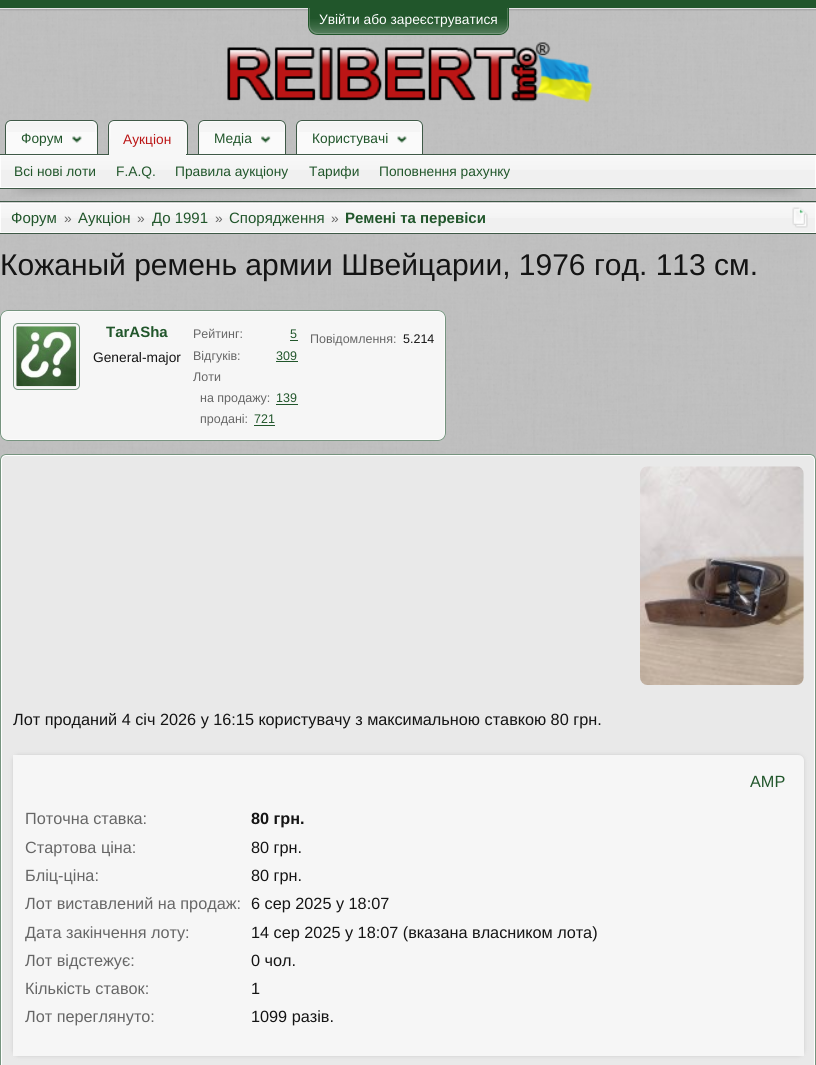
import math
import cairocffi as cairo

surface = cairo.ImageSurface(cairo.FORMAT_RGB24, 816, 1065)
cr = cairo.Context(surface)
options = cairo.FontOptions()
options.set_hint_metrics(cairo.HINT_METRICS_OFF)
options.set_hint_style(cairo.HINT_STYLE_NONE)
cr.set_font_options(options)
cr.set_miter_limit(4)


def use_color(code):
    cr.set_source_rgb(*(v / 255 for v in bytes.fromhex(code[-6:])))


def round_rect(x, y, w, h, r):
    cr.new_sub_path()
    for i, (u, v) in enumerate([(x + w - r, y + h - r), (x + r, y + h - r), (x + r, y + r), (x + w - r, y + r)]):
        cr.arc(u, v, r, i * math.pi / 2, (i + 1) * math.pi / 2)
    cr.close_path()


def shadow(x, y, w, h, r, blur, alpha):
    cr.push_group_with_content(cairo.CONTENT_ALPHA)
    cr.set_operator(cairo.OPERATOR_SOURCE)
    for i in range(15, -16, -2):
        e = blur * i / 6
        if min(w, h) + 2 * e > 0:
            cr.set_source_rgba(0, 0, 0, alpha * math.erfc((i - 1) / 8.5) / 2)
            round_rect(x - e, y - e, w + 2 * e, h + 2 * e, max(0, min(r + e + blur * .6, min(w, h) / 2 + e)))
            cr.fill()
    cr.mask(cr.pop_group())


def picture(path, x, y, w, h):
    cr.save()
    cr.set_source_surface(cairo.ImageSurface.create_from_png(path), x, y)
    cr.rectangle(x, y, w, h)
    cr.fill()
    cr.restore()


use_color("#c0c0c0")
cr.paint()
use_color("#21562b")
cr.rectangle(0, 0, 816, 8)
cr.fill()
picture("img2.png", 0, 8, 814, 452)
picture("img3.png", 0, 8, 816, 3)
cr.new_path()
cr.move_to(309, 8)
cr.line_to(508, 8)
cr.line_to(508, 25)
cr.curve_to(508, 30, 504, 34, 499, 34)
cr.line_to(318, 34)
cr.curve_to(313, 34, 309, 30, 309, 25)
cr.close_path()
cr.fill()
picture("img1.png", 308, 19, 200, 16)
cr.save()
cr.rectangle(308, 8, 201, 30)
cr.clip()
cr.new_path()
cr.move_to(309.5, 3.5)
cr.line_to(507.5, 3.5)
cr.line_to(507.5, 25)
cr.curve_to(507.5, 29.5, 503.5, 33.5, 499, 33.5)
cr.line_to(318, 33.5)
cr.curve_to(313.5, 33.5, 309.5, 29.5, 309.5, 25)
cr.close_path()
cr.set_source_rgba(1, 1, 1, 0.2)
cr.set_line_width(1)
cr.stroke()
use_color("#21562b")
cr.set_fill_rule(cairo.FILL_RULE_EVEN_ODD)
cr.new_path()
cr.move_to(308, 2)
cr.line_to(509, 2)
cr.line_to(509, 25)
cr.curve_to(509, 31, 504, 35, 499, 35)
cr.line_to(318, 35)
cr.curve_to(312, 35, 308, 31, 308, 25)
cr.close_path()
cr.move_to(309, 2)
cr.line_to(508, 2)
cr.line_to(508, 25)
cr.curve_to(508, 30, 504, 34, 499, 34)
cr.line_to(318, 34)
cr.curve_to(313, 34, 309, 30, 309, 25)
cr.close_path()
cr.fill()
cr.restore()
cr.select_font_face("Liberation Sans")
cr.set_font_size(13.75)
use_color("#ffffff")
cr.move_to(319, 24)
cr.show_text("Увійти або зареєструватися")
picture("img4.png", 227, 42, 366, 61)
use_color("#fafafa")
cr.new_path()
cr.move_to(11, 120)
cr.line_to(92, 120)
cr.curve_to(95.5, 120, 98, 122.5, 98, 126)
cr.line_to(98, 156)
cr.line_to(5, 156)
cr.line_to(5, 126)
cr.curve_to(5, 122.5, 7.5, 120, 11, 120)
cr.close_path()
cr.fill()
picture("img5.png", 5, 122, 92, 10)
cr.new_path()
cr.move_to(11, 121.5)
cr.line_to(91, 121.5)
cr.curve_to(93.5, 121.5, 95.5, 123.5, 95.5, 126)
cr.line_to(95.5, 154.5)
cr.line_to(6.5, 154.5)
cr.line_to(6.5, 126)
cr.curve_to(6.5, 123.5, 8.5, 121.5, 11, 121.5)
cr.close_path()
cr.set_line_width(1)
cr.stroke()
cr.new_path()
cr.move_to(11, 120.5)
cr.line_to(92, 120.5)
cr.curve_to(95, 120.5, 97.5, 123, 97.5, 126)
cr.line_to(97.5, 155.5)
cr.line_to(5.5, 155.5)
cr.line_to(5.5, 126)
cr.curve_to(5.5, 123, 8, 120.5, 11, 120.5)
cr.close_path()
use_color("#3f5947")
cr.stroke()
use_color("#21562b")
cr.move_to(21, 143)
cr.show_text("Форум")
picture("img6.png", 72, 136, 10, 7)
use_color("#f7f7f7")
cr.new_path()
cr.move_to(114, 120)
cr.line_to(182, 120)
cr.curve_to(185.5, 120, 188, 122.5, 188, 126)
cr.line_to(188, 158)
cr.line_to(108, 158)
cr.line_to(108, 126)
cr.curve_to(108, 122.5, 110.5, 120, 114, 120)
cr.close_path()
cr.fill()
picture("img7.png", 107, 121, 4, 18)
cr.new_path()
cr.move_to(114, 121.5)
cr.line_to(181, 121.5)
cr.curve_to(183.5, 121.5, 185.5, 123.5, 185.5, 126)
cr.line_to(185.5, 155.5)
cr.line_to(109.5, 155.5)
cr.line_to(109.5, 126)
cr.curve_to(109.5, 123.5, 111.5, 121.5, 114, 121.5)
cr.close_path()
use_color("#fafafa")
cr.stroke()
cr.new_path()
cr.move_to(114, 120.5)
cr.line_to(182, 120.5)
cr.curve_to(185, 120.5, 187.5, 123, 187.5, 126)
cr.line_to(187.5, 157.5)
cr.line_to(108.5, 157.5)
cr.line_to(108.5, 126)
cr.curve_to(108.5, 123, 111, 120.5, 114, 120.5)
cr.close_path()
use_color("#3f5947")
cr.stroke()
use_color("#bb1515")
cr.move_to(123, 144)
cr.show_text("Аукціон")
use_color("#fafafa")
cr.new_path()
cr.move_to(204, 120)
cr.line_to(280, 120)
cr.curve_to(283.5, 120, 286, 122.5, 286, 126)
cr.line_to(286, 156)
cr.line_to(198, 156)
cr.line_to(198, 126)
cr.curve_to(198, 122.5, 200.5, 120, 204, 120)
cr.close_path()
cr.fill()
picture("img8.png", 198, 122, 88, 10)
cr.new_path()
cr.move_to(204, 121.5)
cr.line_to(280, 121.5)
cr.curve_to(282.5, 121.5, 284.5, 123.5, 284.5, 126)
cr.line_to(284.5, 154.5)
cr.line_to(199.5, 154.5)
cr.line_to(199.5, 126)
cr.curve_to(199.5, 123.5, 201.5, 121.5, 204, 121.5)
cr.close_path()
cr.stroke()
cr.new_path()
cr.move_to(204, 120.5)
cr.line_to(280, 120.5)
cr.curve_to(283, 120.5, 285.5, 123, 285.5, 126)
cr.line_to(285.5, 155.5)
cr.line_to(198.5, 155.5)
cr.line_to(198.5, 126)
cr.curve_to(198.5, 123, 201, 120.5, 204, 120.5)
cr.close_path()
use_color("#3f5947")
cr.stroke()
use_color("#fafafa")
cr.new_path()
cr.move_to(302, 120)
cr.line_to(417, 120)
cr.curve_to(420.5, 120, 423, 122.5, 423, 126)
cr.line_to(423, 156)
cr.line_to(296, 156)
cr.line_to(296, 126)
cr.curve_to(296, 122.5, 298.5, 120, 302, 120)
cr.close_path()
cr.fill()
picture("img10.png", 297, 122, 125, 10)
cr.new_path()
cr.move_to(303, 121.5)
cr.line_to(416, 121.5)
cr.curve_to(418.5, 121.5, 420.5, 123.5, 420.5, 126)
cr.line_to(420.5, 154.5)
cr.line_to(298.5, 154.5)
cr.line_to(298.5, 126)
cr.curve_to(298.5, 123.5, 300.5, 121.5, 303, 121.5)
cr.close_path()
cr.stroke()
cr.new_path()
cr.move_to(302, 120.5)
cr.line_to(417, 120.5)
cr.curve_to(420, 120.5, 422.5, 123, 422.5, 126)
cr.line_to(422.5, 155.5)
cr.line_to(296.5, 155.5)
cr.line_to(296.5, 126)
cr.curve_to(296.5, 123, 299, 120.5, 302, 120.5)
cr.close_path()
use_color("#3f5947")
cr.stroke()
use_color("#f0f0f0")
cr.rectangle(1, 156, 814, 31)
cr.fill()
picture("img13.png", 1, 156, 814, 14)
cr.rectangle(0.5, 155.5, 815, 32)
use_color("#fdfdfd")
cr.stroke()
use_color("#3f5947")
cr.rectangle(0, 154, 816, 1)
cr.fill()
use_color("#f7f7f7")
cr.rectangle(109, 154, 77, 2)
cr.fill()
use_color("#21562b")
cr.move_to(214, 143)
cr.show_text("Медіа")
picture("img9.png", 261, 136, 10, 7)
cr.move_to(312, 143)
cr.show_text("Користувачі")
picture("img11.png", 397, 136, 10, 7)
picture("img12.png", 11, 189, 791, 8)
use_color("#3f5947")
cr.rectangle(0, 188, 816, 1)
cr.fill()
use_color("#21562b")
cr.move_to(14, 176)
cr.show_text("Всі нові лоти")
cr.move_to(116, 176)
cr.show_text("F.A.Q.")
cr.move_to(175, 176)
cr.show_text("Правила аукціону")
cr.move_to(309, 176)
cr.show_text("Тарифи")
cr.move_to(379, 176)
cr.show_text("Поповнення рахунку")
use_color("#f0f0f0")
cr.rectangle(1, 204, 814, 28)
cr.fill()
picture("img14.png", 0, 202, 816, 16)
cr.rectangle(0.5, 203.5, 815, 29)
use_color("#fdfdfd")
cr.stroke()
use_color("#3f5947")
cr.rectangle(0, 201, 816, 1)
cr.fill()
cr.rectangle(0, 233, 816, 1)
cr.fill()
cr.set_font_size(15)
use_color("#21562b")
cr.move_to(11, 223)
cr.show_text("Форум")
cr.set_font_size(13.75)
use_color("#666666")
cr.move_to(64, 223)
cr.show_text("»")
cr.set_font_size(15)
use_color("#21562b")
cr.move_to(78, 223)
cr.show_text("Аукціон")
cr.set_font_size(13.75)
use_color("#666666")
cr.move_to(137, 223)
cr.show_text("»")
cr.set_font_size(15)
use_color("#21562b")
cr.move_to(152, 223)
cr.show_text("До 1991")
cr.set_font_size(13.75)
use_color("#666666")
cr.move_to(215, 223)
cr.show_text("»")
cr.set_font_size(15)
use_color("#21562b")
cr.move_to(229, 223)
cr.show_text("Спорядження")
cr.set_font_size(13.75)
use_color("#666666")
cr.move_to(331, 223)
cr.show_text("»")
cr.select_font_face("Liberation Sans", cairo.FONT_SLANT_NORMAL, cairo.FONT_WEIGHT_BOLD)
cr.set_font_size(15)
use_color("#21562b")
cr.move_to(345, 223)
cr.show_text("Ремені та перевіси")
picture("img15.png", 792, 207, 16, 21)
cr.select_font_face("Liberation Sans")
cr.set_font_size(30)
use_color("#141414")
cr.move_to(0, 275)
cr.show_text("Кожаный ремень армии Швейцарии, 1976 год. 113 см.")
use_color("#f6f6f6")
round_rect(0, 310, 446, 131, 8)
cr.fill()
round_rect(1.5, 311.5, 443, 128, 5.5)
use_color("#fcfcfc")
cr.stroke()
round_rect(0.5, 310.5, 445, 130, 7.5)
use_color("#76947f")
cr.stroke()
round_rect(13.5, 323.5, 66, 66, 4.5)
cr.stroke()
picture("img16.png", 16, 326, 61, 61)
cr.select_font_face("Liberation Sans", cairo.FONT_SLANT_NORMAL, cairo.FONT_WEIGHT_BOLD)
cr.set_font_size(15)
use_color("#21562b")
cr.move_to(106, 337)
cr.show_text("TarASha")
cr.select_font_face("Liberation Sans")
cr.set_font_size(13.75)
use_color("#141414")
cr.move_to(93, 362)
cr.show_text("General-major")
cr.set_font_size(12.5)
use_color("#666666")
cr.move_to(193, 338)
cr.show_text("Рейтинг:")
use_color("#21562b")
cr.move_to(290, 338)
cr.show_text("5")
cr.rectangle(290, 340, 8, 1)
cr.fill()
use_color("#666666")
cr.move_to(193, 360)
cr.show_text("Відгуків:")
use_color("#21562b")
cr.move_to(276, 360)
cr.show_text("309")
cr.rectangle(276, 361, 22, 1)
cr.fill()
use_color("#666666")
cr.move_to(193, 381)
cr.show_text("Лоти")
cr.move_to(200, 402)
cr.show_text("на продажу:")
use_color("#21562b")
cr.move_to(276, 402)
cr.show_text("139")
cr.rectangle(276, 404, 22, 1)
cr.fill()
use_color("#666666")
cr.move_to(200, 423)
cr.show_text("продані:")
use_color("#21562b")
cr.move_to(254, 423)
cr.show_text("721")
cr.rectangle(254, 425, 21, 1)
cr.fill()
use_color("#666666")
cr.move_to(310, 343)
cr.show_text("Повідомлення:")
use_color("#141414")
cr.move_to(403, 343)
cr.show_text("5.214")
use_color("#e9e9e9")
round_rect(0, 454, 816, 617, 6)
cr.fill()
round_rect(1.5, 455.5, 813, 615, 4.5)
use_color("#ffffff")
cr.stroke()
round_rect(0.5, 454.5, 815, 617, 5.5)
use_color("#76947f")
cr.stroke()
picture("img17.png", 640, 466, 164, 219)
cr.set_font_size(16.25)
use_color("#141414")
cr.move_to(13, 725)
cr.show_text("Лот проданий 4 січ 2026 у 16:15 користувачу з максимальною ставкою 80 грн.")
use_color("#cccccc")
shadow(13, 755, 791, 301, 6, 2, 1)
use_color("#f6f6f6")
cr.new_path()
cr.move_to(13, 755)
cr.line_to(798, 755)
cr.curve_to(801.5, 755, 804, 757.5, 804, 761)
cr.line_to(804, 1056)
cr.line_to(13, 1056)
cr.close_path()
cr.fill()
use_color("#21562b")
cr.move_to(750, 787)
cr.show_text("AMP")
use_color("#666666")
cr.move_to(25, 824)
cr.show_text("Поточна ставка:")
cr.select_font_face("Liberation Sans", cairo.FONT_SLANT_NORMAL, cairo.FONT_WEIGHT_BOLD)
use_color("#141414")
cr.move_to(251, 824)
cr.show_text("80 грн.")
cr.select_font_face("Liberation Sans")
use_color("#666666")
cr.move_to(25, 853)
cr.show_text("Стартова ціна:")
use_color("#141414")
cr.move_to(251, 853)
cr.show_text("80 грн.")
use_color("#666666")
cr.move_to(25, 881)
cr.show_text("Бліц-ціна:")
use_color("#141414")
cr.move_to(251, 881)
cr.show_text("80 грн.")
use_color("#666666")
cr.move_to(25, 909)
cr.show_text("Лот виставлений на продаж:")
use_color("#141414")
cr.move_to(251, 909)
cr.show_text("6 сер 2025 у 18:07")
use_color("#666666")
cr.move_to(25, 938)
cr.show_text("Дата закінчення лоту:")
use_color("#141414")
cr.move_to(251, 938)
cr.show_text("14 сер 2025 у 18:07 (вказана власником лота)")
use_color("#666666")
cr.move_to(25, 966)
cr.show_text("Лот відстежує:")
use_color("#141414")
cr.move_to(251, 966)
cr.show_text("0 чол.")
use_color("#666666")
cr.move_to(25, 994)
cr.show_text("Кількість ставок:")
use_color("#141414")
cr.move_to(251, 994)
cr.show_text("1")
use_color("#666666")
cr.move_to(25, 1022)
cr.show_text("Лот переглянуто:")
use_color("#141414")
cr.move_to(251, 1022)
cr.show_text("1099 разів.")
surface.write_to_png("result.png")
